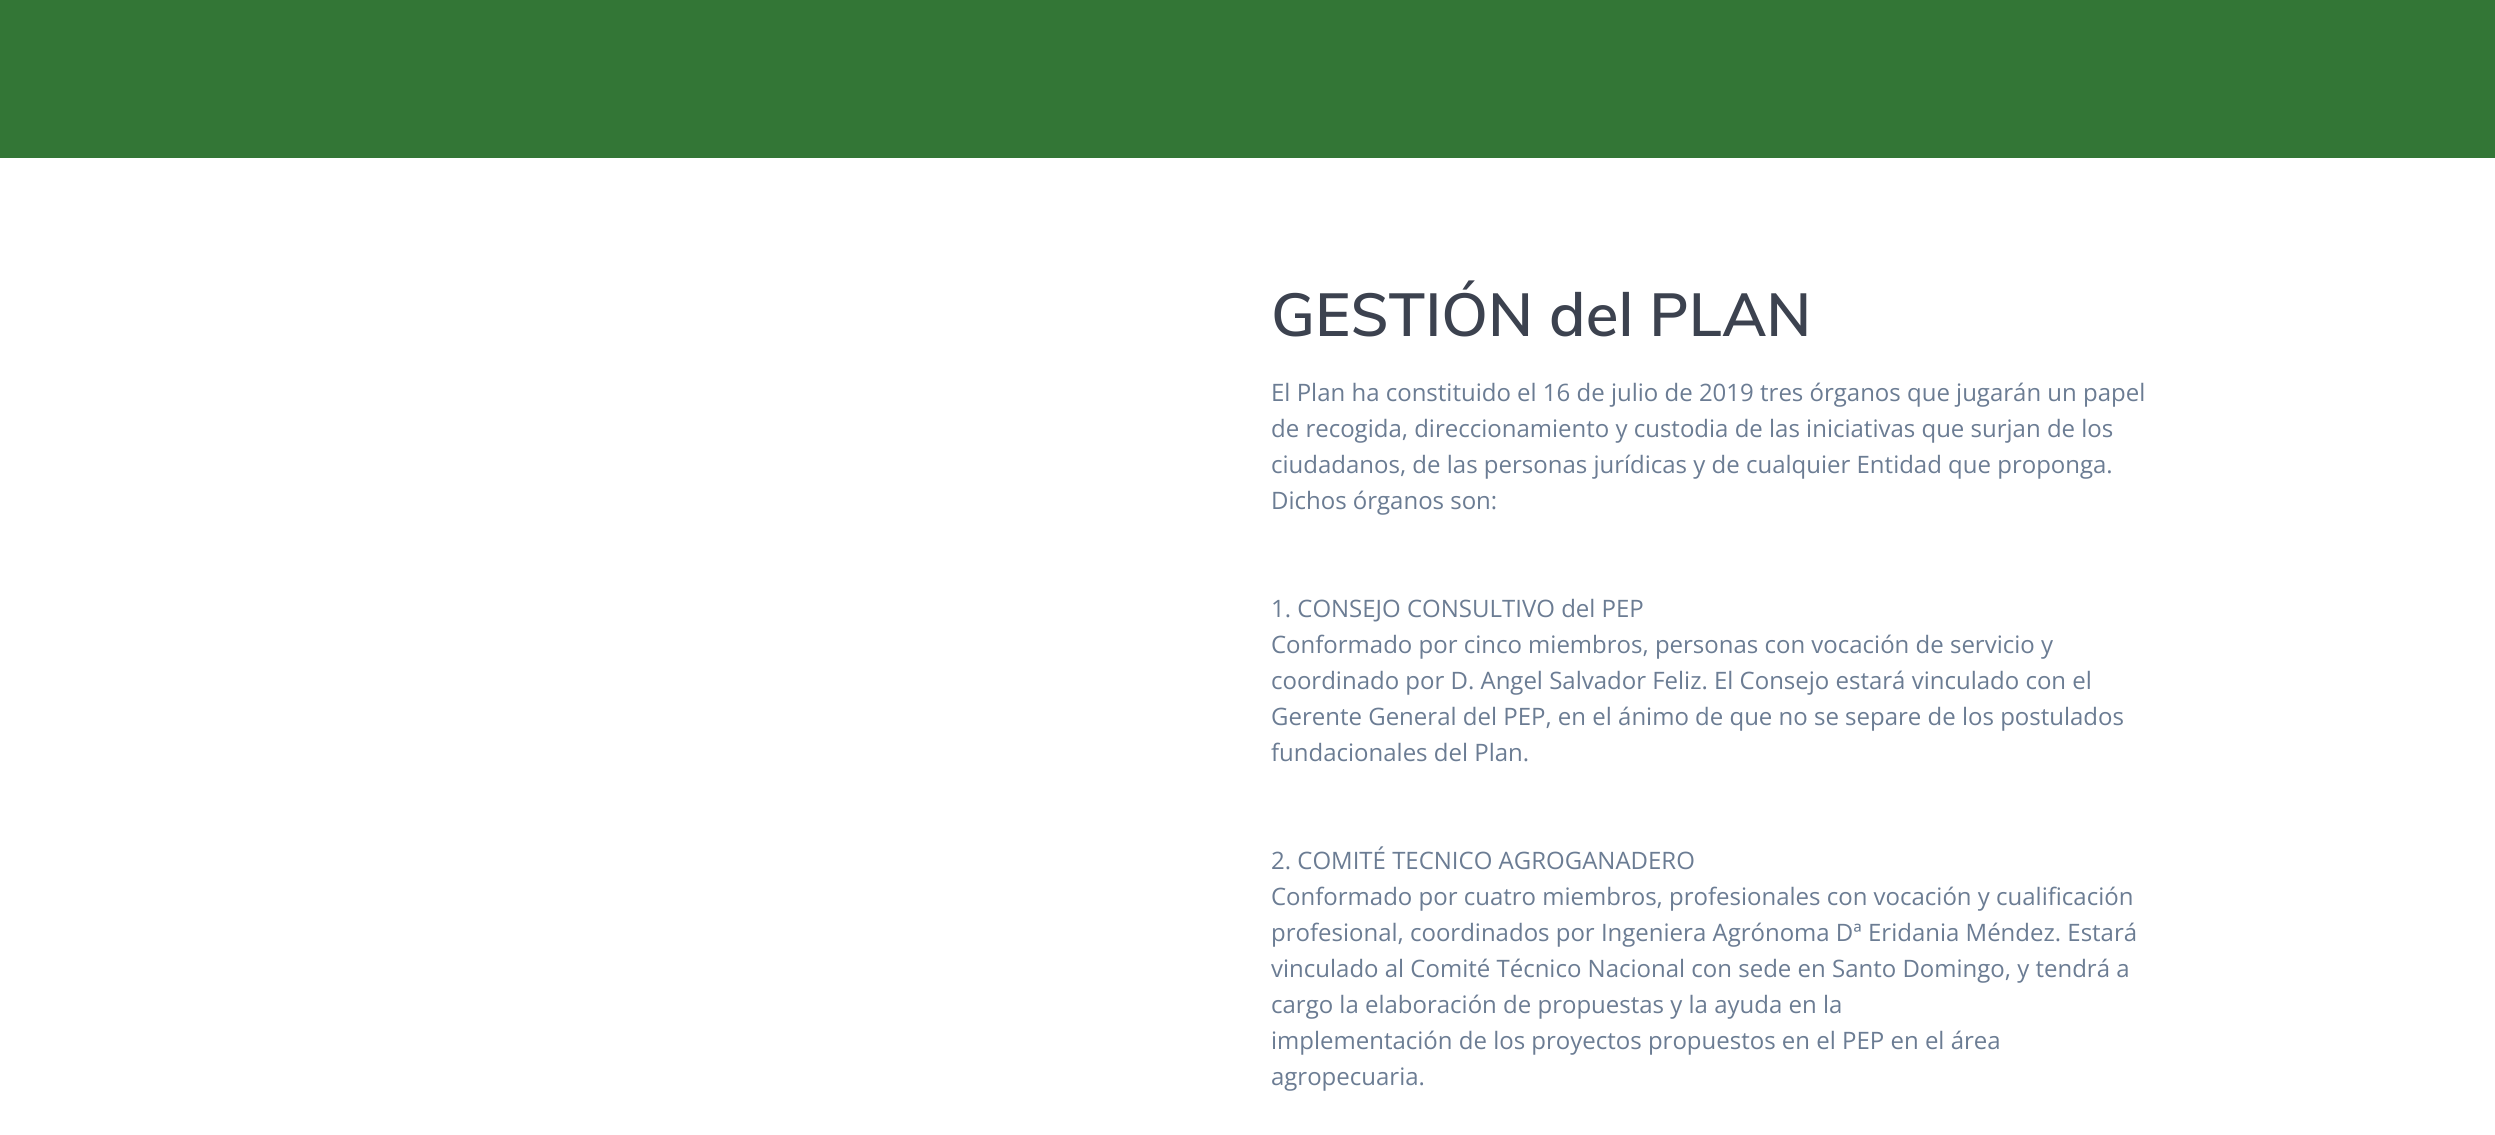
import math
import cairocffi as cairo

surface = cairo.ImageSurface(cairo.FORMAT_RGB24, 2495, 1135)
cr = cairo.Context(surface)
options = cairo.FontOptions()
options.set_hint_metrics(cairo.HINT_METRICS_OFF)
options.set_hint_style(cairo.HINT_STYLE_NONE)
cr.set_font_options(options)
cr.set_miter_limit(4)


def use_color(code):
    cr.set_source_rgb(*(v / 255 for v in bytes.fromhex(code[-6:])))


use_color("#337636")
cr.paint()
use_color("#ffffff")
cr.rectangle(0, 158, 2495, 977)
cr.fill()
cr.select_font_face("Muli SemiBold")
cr.set_font_size(60)
use_color("#3c424f")
cr.move_to(1271, 336)
cr.show_text("GESTIÓN del PLAN")
cr.select_font_face("Open Sans")
cr.set_font_size(24)
use_color("#6b7c93")
cr.move_to(1271, 401)
cr.show_text("El Plan ha constituido el 16 de julio de 2019 tres órganos que jugarán un papel")
cr.move_to(1271, 437)
cr.show_text("de recogida, direccionamiento y custodia de las iniciativas que surjan de los")
cr.move_to(1271, 473)
cr.show_text("ciudadanos, de las personas jurídicas y de cualquier Entidad que proponga.")
cr.move_to(1271, 509)
cr.show_text("Dichos órganos son:")
cr.move_to(1271, 617)
cr.show_text("1. CONSEJO CONSULTIVO del PEP")
cr.move_to(1271, 653)
cr.show_text("Conformado por cinco miembros, personas con vocación de servicio y")
cr.move_to(1271, 689)
cr.show_text("coordinado por D. Angel Salvador Feliz. El Consejo estará vinculado con el")
cr.move_to(1271, 725)
cr.show_text("Gerente General del PEP, en el ánimo de que no se separe de los postulados")
cr.move_to(1271, 761)
cr.show_text("fundacionales del Plan.")
cr.move_to(1271, 869)
cr.show_text("2. COMITÉ TECNICO AGROGANADERO")
cr.move_to(1271, 905)
cr.show_text("Conformado por cuatro miembros, profesionales con vocación y cualificación")
cr.move_to(1271, 941)
cr.show_text("profesional, coordinados por Ingeniera Agrónoma Dª Eridania Méndez. Estará")
cr.move_to(1271, 977)
cr.show_text("vinculado al Comité Técnico Nacional con sede en Santo Domingo, y tendrá a")
cr.move_to(1271, 1013)
cr.show_text("cargo la elaboración de propuestas y la ayuda en la")
cr.move_to(1271, 1049)
cr.show_text("implementación de los proyectos propuestos en el PEP en el área")
cr.move_to(1271, 1085)
cr.show_text("agropecuaria.")
surface.write_to_png("result.png")
